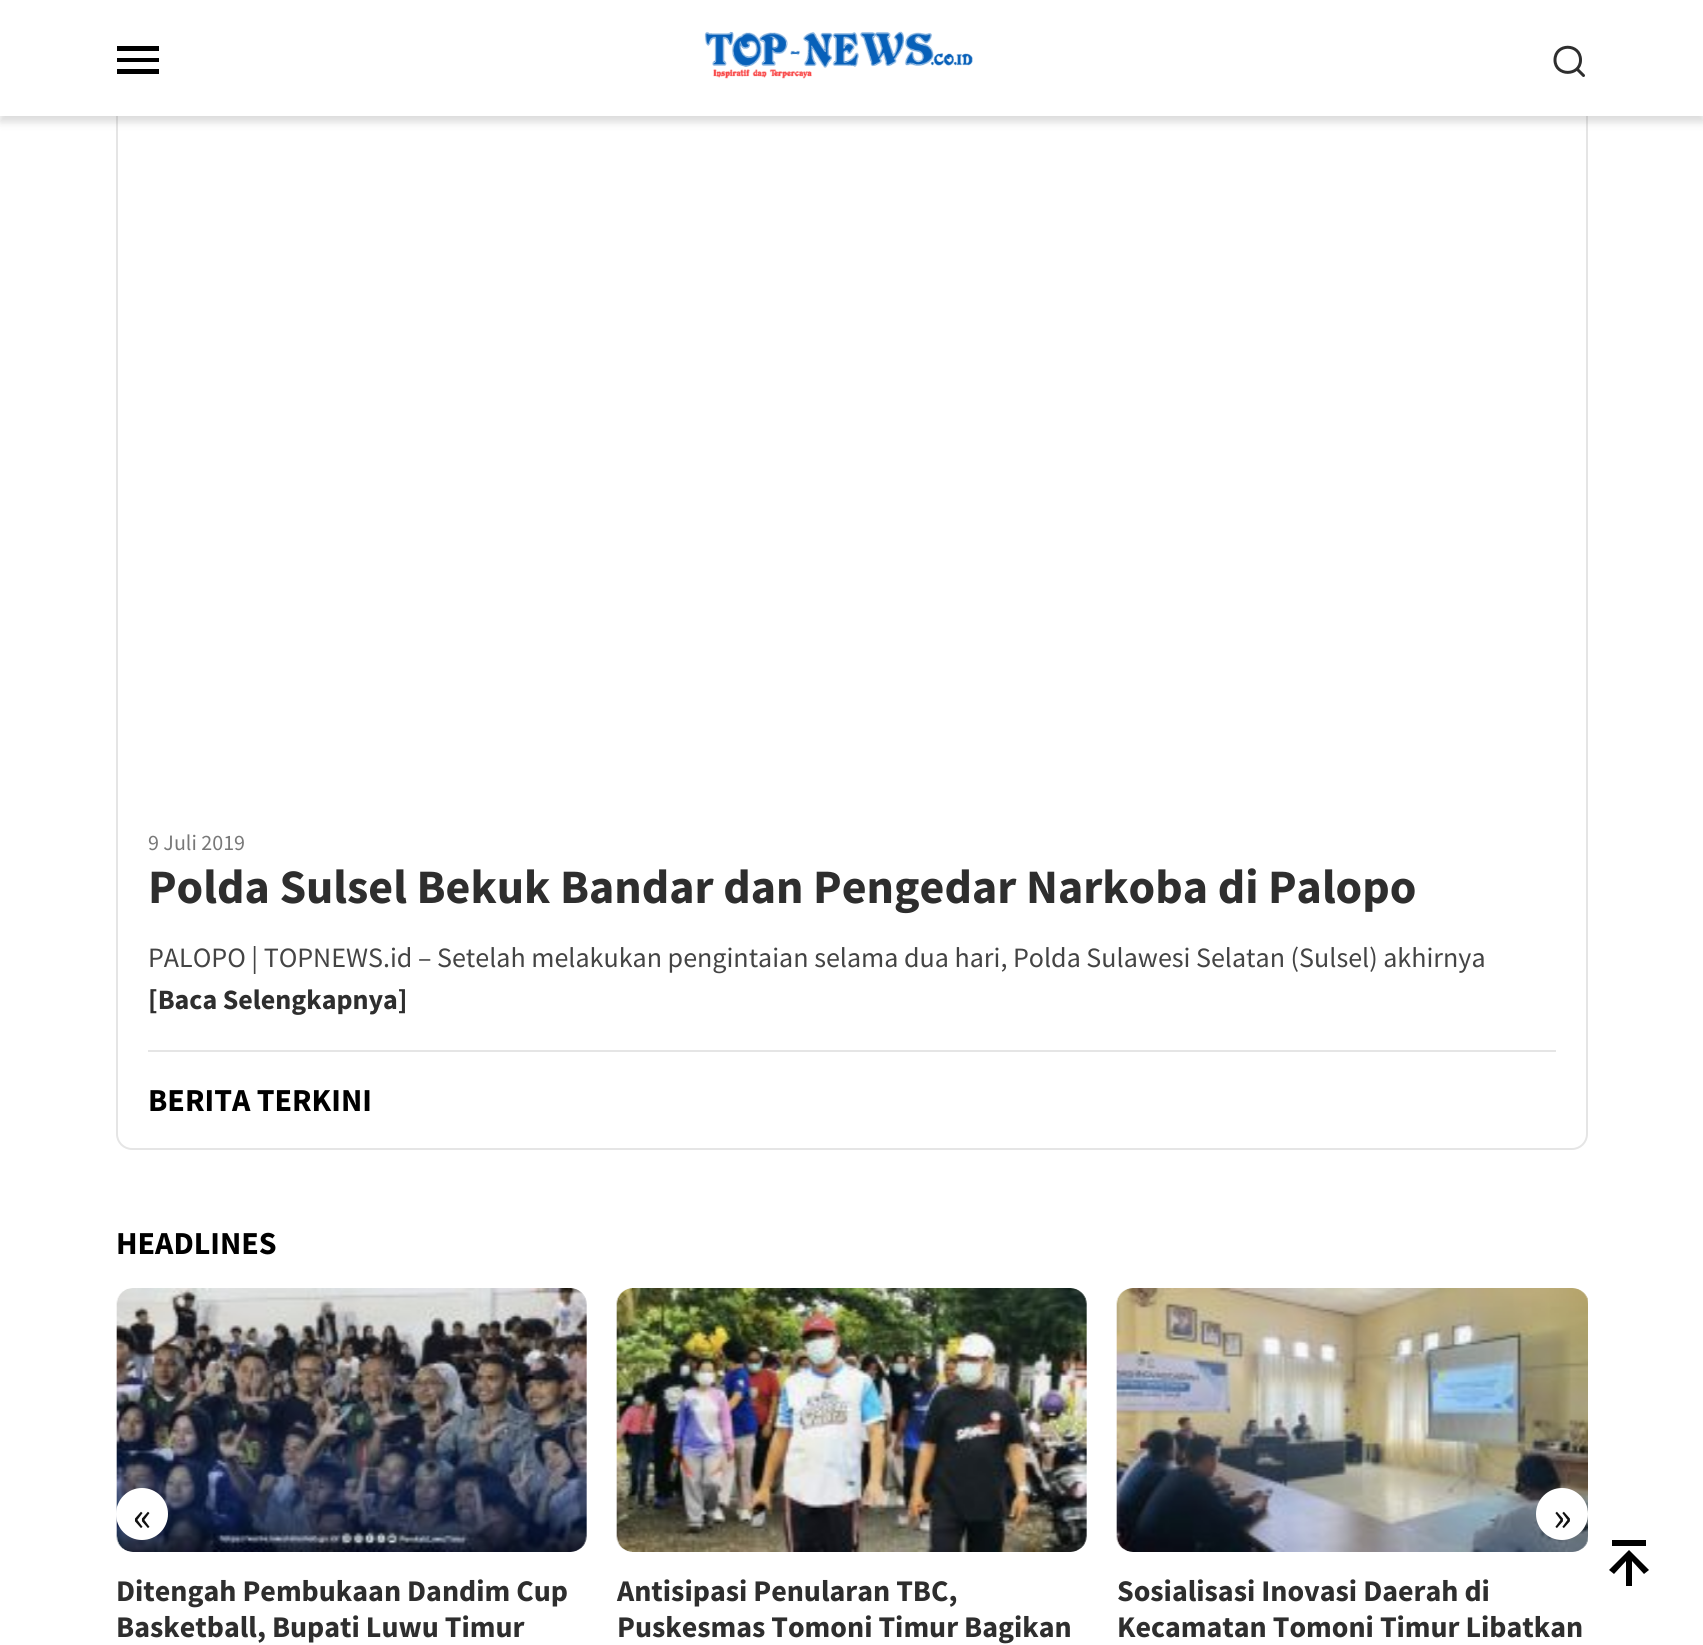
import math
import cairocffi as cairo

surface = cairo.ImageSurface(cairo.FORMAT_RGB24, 1703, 1645)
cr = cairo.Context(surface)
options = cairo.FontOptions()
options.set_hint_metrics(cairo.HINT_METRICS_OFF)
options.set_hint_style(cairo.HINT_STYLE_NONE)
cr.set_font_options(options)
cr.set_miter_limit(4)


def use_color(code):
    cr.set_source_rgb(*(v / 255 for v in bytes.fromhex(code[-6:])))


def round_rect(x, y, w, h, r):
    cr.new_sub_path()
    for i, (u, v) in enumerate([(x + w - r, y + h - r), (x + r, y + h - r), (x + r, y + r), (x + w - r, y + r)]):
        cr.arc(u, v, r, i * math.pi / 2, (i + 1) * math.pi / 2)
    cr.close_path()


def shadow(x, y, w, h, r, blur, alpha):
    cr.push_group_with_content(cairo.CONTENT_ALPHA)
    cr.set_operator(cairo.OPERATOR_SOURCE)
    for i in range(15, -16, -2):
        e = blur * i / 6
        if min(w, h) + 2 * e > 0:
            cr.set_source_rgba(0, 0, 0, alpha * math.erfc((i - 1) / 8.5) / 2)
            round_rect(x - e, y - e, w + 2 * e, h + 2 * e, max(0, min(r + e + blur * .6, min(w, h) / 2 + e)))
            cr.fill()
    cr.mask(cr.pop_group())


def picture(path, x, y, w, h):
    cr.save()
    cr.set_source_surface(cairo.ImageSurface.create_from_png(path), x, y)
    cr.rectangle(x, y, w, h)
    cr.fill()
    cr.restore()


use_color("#ffffff")
cr.paint()
round_rect(117, 61, 1470, 1088, 15)
use_color("#e5e5e5")
cr.stroke()
use_color("#343434")
shadow(0, 6, 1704, 116, 0, 4, 0.18)
use_color("#ffffff")
cr.rectangle(0, 0, 1703, 116)
cr.fill()
use_color("#000000")
cr.new_path()
cr.move_to(117, 46)
cr.line_to(159, 46)
cr.line_to(159, 51)
cr.line_to(117, 51)
cr.line_to(117, 46)
cr.move_to(117, 58)
cr.line_to(159, 58)
cr.line_to(159, 62)
cr.line_to(117, 62)
cr.line_to(117, 58)
cr.move_to(117, 69)
cr.line_to(159, 69)
cr.line_to(159, 74)
cr.line_to(117, 74)
cr.close_path()
cr.fill()
picture("img1.png", 704, 31, 269, 48)
cr.new_path()
cr.move_to(1583.5, 75.5)
cr.line_to(1577, 69)
cr.move_to(1580.5, 60)
cr.curve_to(1580.5, 76.5, 1555, 76.5, 1555, 60)
cr.curve_to(1555, 43, 1580.5, 43, 1580.5, 60)
cr.close_path()
use_color("#2e2e2e")
cr.set_line_width(3)
cr.set_line_cap(cairo.LINE_CAP_ROUND)
cr.stroke()
use_color("#e5e5e5")
cr.rectangle(148, 1050, 1408, 2)
cr.fill()
cr.select_font_face("Source Sans Pro")
cr.set_font_size(22)
use_color("#787878")
cr.move_to(148, 850)
cr.show_text("9 Juli 2019")
cr.select_font_face("Source Sans Pro", cairo.FONT_SLANT_NORMAL, cairo.FONT_WEIGHT_BOLD)
cr.set_font_size(48)
use_color("#2e2e2e")
cr.move_to(148, 903)
cr.show_text("Polda Sulsel Bekuk Bandar dan Pengedar Narkoba di Palopo")
cr.select_font_face("Source Sans Pro")
cr.set_font_size(28)
use_color("#444444")
cr.move_to(148, 967)
cr.show_text("PALOPO | TOPNEWS.id – Setelah melakukan pengintaian selama dua hari, Polda Sulawesi Selatan (Sulsel) akhirnya")
cr.select_font_face("Source Sans Pro", cairo.FONT_SLANT_NORMAL, cairo.FONT_WEIGHT_BOLD)
use_color("#2e2e2e")
cr.move_to(148, 1009)
cr.show_text("[Baca Selengkapnya]")
cr.set_font_size(32)
use_color("#000000")
cr.move_to(148, 1111)
cr.show_text("BERITA TERKINI")
cr.move_to(116, 1254)
cr.show_text("HEADLINES")
picture("img2.png", 116, 1288, 471, 264)
use_color("#ffffff")
cr.arc(142, 1514, 26, 0, 2 * math.pi)
cr.fill()
cr.select_font_face("Source Sans Pro")
cr.set_font_size(44)
use_color("#111111")
cr.move_to(133, 1531)
cr.show_text("«")
picture("img4.png", 1116, 1288, 472, 264)
use_color("#ffffff")
cr.arc(1562, 1514, 26, 0, 2 * math.pi)
cr.fill()
use_color("#111111")
cr.move_to(1553, 1531)
cr.show_text("»")
cr.select_font_face("Source Sans Pro", cairo.FONT_SLANT_NORMAL, cairo.FONT_WEIGHT_BOLD)
cr.set_font_size(30)
use_color("#2e2e2e")
cr.move_to(116, 1601)
cr.show_text("Ditengah Pembukaan Dandim Cup")
cr.move_to(116, 1637)
cr.show_text("Basketball, Bupati Luwu Timur")
picture("img3.png", 616, 1288, 471, 264)
cr.move_to(617, 1601)
cr.show_text("Antisipasi Penularan TBC,")
cr.move_to(617, 1637)
cr.show_text("Puskesmas Tomoni Timur Bagikan")
cr.move_to(1117, 1601)
cr.show_text("Sosialisasi Inovasi Daerah di")
cr.move_to(1117, 1637)
cr.show_text("Kecamatan Tomoni Timur Libatkan")
use_color("#000000")
cr.new_path()
cr.move_to(1612, 1540)
cr.line_to(1646, 1540)
cr.line_to(1646, 1546)
cr.line_to(1612, 1546)
cr.close_path()
cr.move_to(1614, 1574)
cr.line_to(1626, 1561)
cr.line_to(1626, 1586)
cr.line_to(1632, 1586)
cr.line_to(1632, 1561)
cr.line_to(1644, 1574)
cr.line_to(1649, 1570)
cr.line_to(1629, 1550)
cr.line_to(1609, 1570)
cr.close_path()
cr.fill()
surface.write_to_png("result.png")
